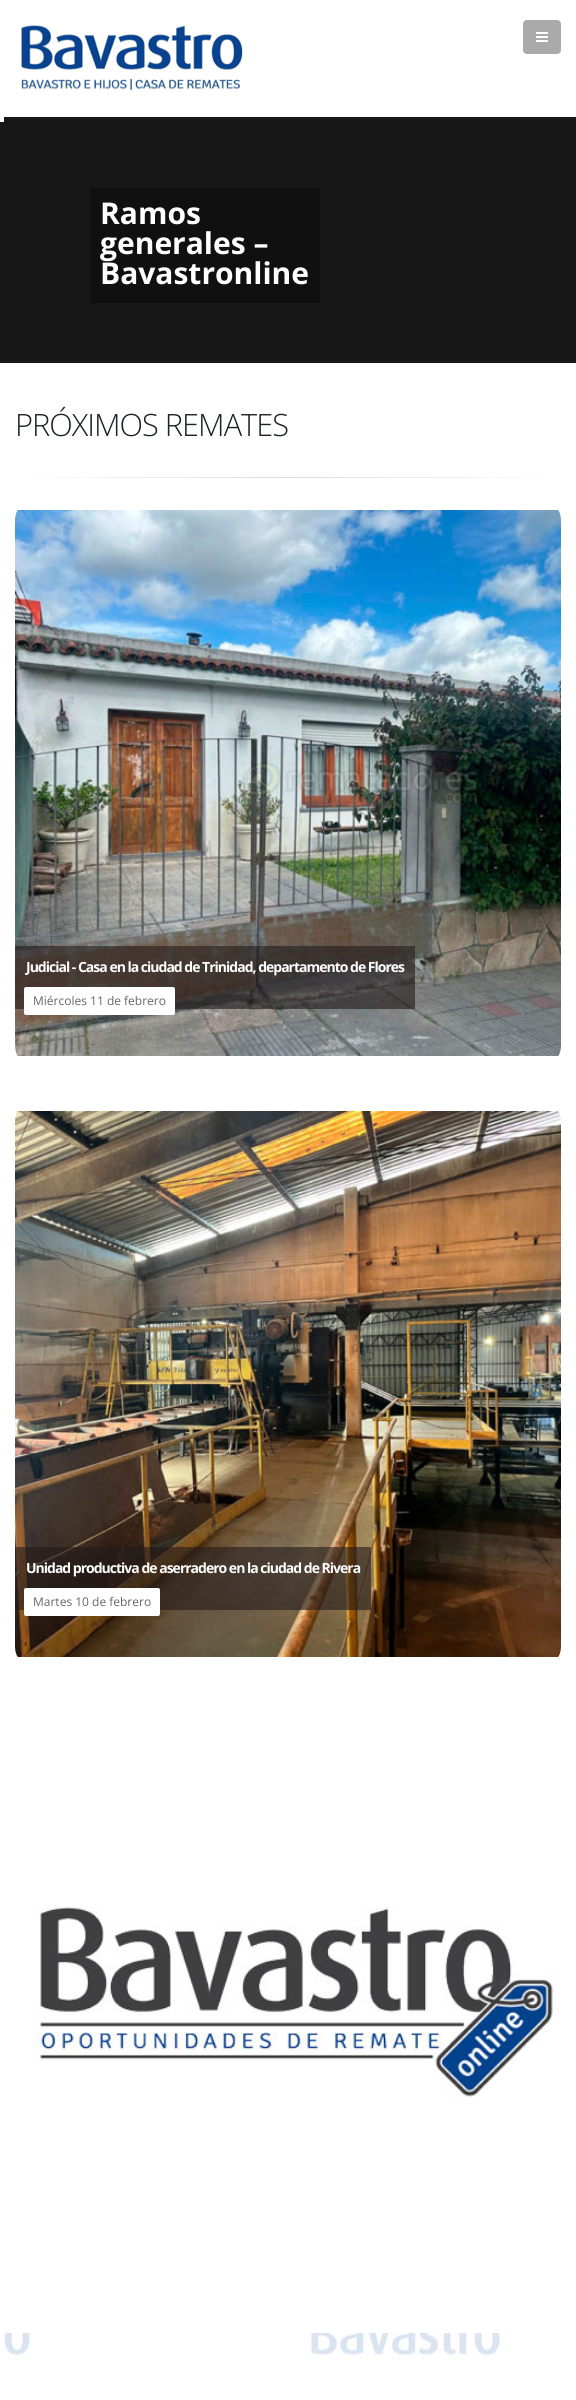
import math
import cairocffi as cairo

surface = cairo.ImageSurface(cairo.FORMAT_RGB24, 576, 2400)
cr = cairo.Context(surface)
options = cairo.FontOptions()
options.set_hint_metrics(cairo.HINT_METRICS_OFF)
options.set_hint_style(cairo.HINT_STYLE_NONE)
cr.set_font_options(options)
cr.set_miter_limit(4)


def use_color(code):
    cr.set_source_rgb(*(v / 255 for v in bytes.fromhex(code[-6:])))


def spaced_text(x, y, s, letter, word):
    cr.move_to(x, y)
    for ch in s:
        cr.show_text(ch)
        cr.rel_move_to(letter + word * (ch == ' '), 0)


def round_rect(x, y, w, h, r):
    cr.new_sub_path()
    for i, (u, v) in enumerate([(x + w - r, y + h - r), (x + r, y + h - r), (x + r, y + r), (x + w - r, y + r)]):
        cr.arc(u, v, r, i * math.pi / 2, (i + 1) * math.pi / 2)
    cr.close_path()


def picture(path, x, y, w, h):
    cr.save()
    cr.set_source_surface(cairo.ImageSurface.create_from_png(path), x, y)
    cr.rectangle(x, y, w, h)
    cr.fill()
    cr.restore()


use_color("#ffffff")
cr.paint()
picture("img1.png", 21, 25, 222, 66)
use_color("#aaaaaa")
round_rect(523, 20, 38, 34, 4)
cr.fill()
picture("img2.png", 536, 32, 12, 10)
use_color("#171717")
cr.rectangle(0, 117, 576, 246)
cr.fill()
use_color("#ffffff")
cr.rectangle(0, 117, 4, 5)
cr.fill()
use_color("#101010")
cr.rectangle(90, 188, 230, 115)
cr.fill()
cr.select_font_face("Open Sans", cairo.FONT_SLANT_NORMAL, cairo.FONT_WEIGHT_BOLD)
cr.set_font_size(30)
use_color("#ffffff")
cr.move_to(100, 224)
cr.show_text("Ramos")
cr.move_to(100, 254)
cr.show_text("generales –")
cr.move_to(100, 284)
cr.show_text("Bavastronline")
cr.select_font_face("Open Sans Light")
cr.set_font_size(30.75)
use_color("#1d2127")
spaced_text(15, 436, "PRÓXIMOS REMATES", -1, 0)
gradient = cairo.LinearGradient(15, 478, 561, 478)
gradient.add_color_stop_rgba(0, 1, 1, 1, 1)
gradient.add_color_stop_rgba(0.5, 0.859, 0.859, 0.859, 1)
gradient.add_color_stop_rgba(1, 1, 1, 1, 1)
cr.set_source(gradient)
cr.rectangle(34, 477, 508, 1)
cr.fill()
picture("img3.png", 15, 510, 546, 546)
cr.set_source_rgba(0.141, 0.106, 0.11, 0.6)
cr.rectangle(15, 946, 400, 63)
cr.fill()
cr.select_font_face("Open Sans", cairo.FONT_SLANT_NORMAL, cairo.FONT_WEIGHT_BOLD)
cr.set_font_size(14)
use_color("#ffffff")
spaced_text(26, 972, "Judicial - Casa en la ciudad de Trinidad, departamento de Flores", -1, 0)
round_rect(24, 987, 151, 28, 2)
cr.fill()
cr.select_font_face("Open Sans")
cr.set_font_size(12)
use_color("#666666")
cr.move_to(33, 1005)
cr.show_text("Miércoles 11 de febrero")
picture("img4.png", 15, 1111, 546, 546)
cr.set_source_rgba(0.141, 0.106, 0.11, 0.6)
cr.rectangle(15, 1547, 356, 63)
cr.fill()
cr.select_font_face("Open Sans", cairo.FONT_SLANT_NORMAL, cairo.FONT_WEIGHT_BOLD)
cr.set_font_size(14)
use_color("#ffffff")
spaced_text(26, 1573, "Unidad productiva de aserradero en la ciudad de Rivera", -1, 0)
round_rect(24, 1588, 136, 28, 2)
cr.fill()
cr.select_font_face("Open Sans")
cr.set_font_size(12)
use_color("#666666")
cr.move_to(33, 1606)
cr.show_text("Martes 10 de febrero")
picture("img5.png", 34, 1907, 523, 192)
picture("img6.png", 0, 2333, 576, 67)
surface.write_to_png("result.png")
